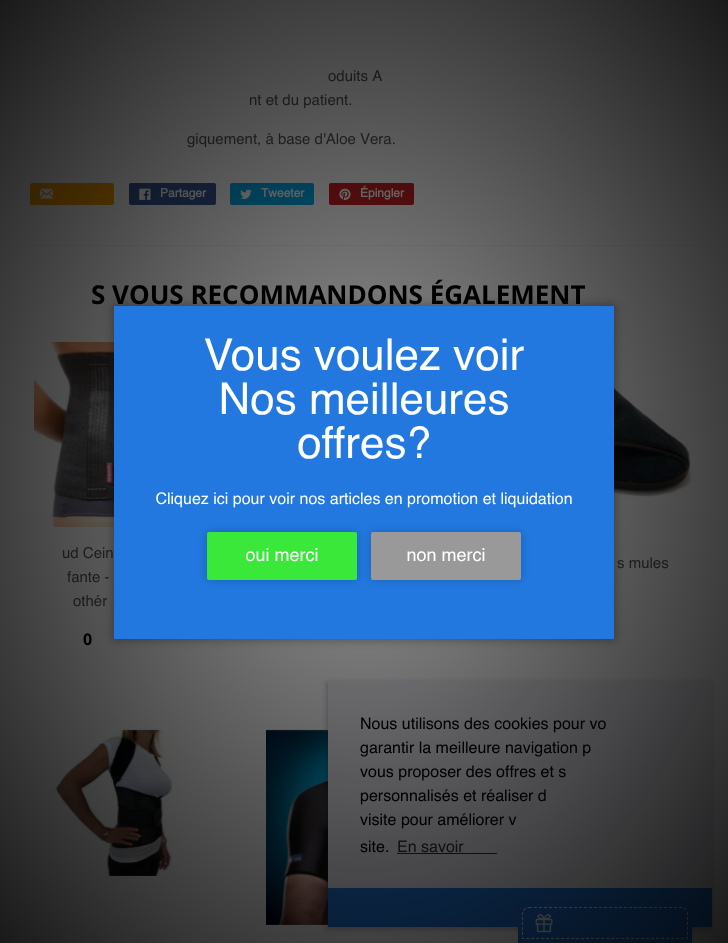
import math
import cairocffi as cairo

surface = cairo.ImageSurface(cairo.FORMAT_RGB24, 728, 943)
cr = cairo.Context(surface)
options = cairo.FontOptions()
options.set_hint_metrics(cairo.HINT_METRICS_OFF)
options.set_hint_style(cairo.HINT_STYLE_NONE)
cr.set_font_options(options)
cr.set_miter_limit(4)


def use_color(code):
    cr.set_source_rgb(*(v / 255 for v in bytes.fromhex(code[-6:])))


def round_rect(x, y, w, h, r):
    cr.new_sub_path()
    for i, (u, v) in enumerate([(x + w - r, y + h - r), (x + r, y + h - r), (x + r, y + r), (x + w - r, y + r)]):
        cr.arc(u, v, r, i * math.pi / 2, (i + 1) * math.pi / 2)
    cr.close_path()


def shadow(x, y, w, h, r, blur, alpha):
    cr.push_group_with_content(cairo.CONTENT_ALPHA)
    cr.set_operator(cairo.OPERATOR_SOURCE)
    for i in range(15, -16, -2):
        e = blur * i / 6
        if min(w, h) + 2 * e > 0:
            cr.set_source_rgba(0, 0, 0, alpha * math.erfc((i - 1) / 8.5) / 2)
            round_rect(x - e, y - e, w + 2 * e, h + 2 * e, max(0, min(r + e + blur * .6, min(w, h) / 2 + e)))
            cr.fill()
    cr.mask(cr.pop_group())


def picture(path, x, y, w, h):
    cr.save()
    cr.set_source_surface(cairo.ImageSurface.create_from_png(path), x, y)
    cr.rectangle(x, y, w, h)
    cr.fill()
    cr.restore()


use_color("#ffffff")
cr.paint()
picture("img10.png", 266, 729, 62, 196)
use_color("#1e2028")
shadow(327, 683, 384, 246, 0, 3, 0.3)
use_color("#227adf")
cr.rectangle(328, 888, 384, 39)
cr.fill()
use_color("#000000")
shadow(518, 903, 174, 40, 10, 2.5, 0.2)
use_color("#2278df")
cr.new_path()
cr.move_to(528, 903)
cr.line_to(682, 903)
cr.curve_to(687.5, 903, 692, 907.5, 692, 913)
cr.line_to(692, 943)
cr.line_to(518, 943)
cr.line_to(518, 913)
cr.curve_to(518, 907.5, 522.5, 903, 528, 903)
cr.close_path()
cr.fill()
cr.new_path()
cr.move_to(529, 907.5)
cr.line_to(681, 907.5)
cr.curve_to(684.5, 907.5, 687.5, 910.5, 687.5, 914)
cr.line_to(687.5, 938.5)
cr.line_to(522.5, 938.5)
cr.line_to(522.5, 914)
cr.curve_to(522.5, 910.5, 525.5, 907.5, 529, 907.5)
cr.close_path()
use_color("#ffffff")
cr.set_line_width(1)
cr.set_dash([3, 2])
cr.stroke()
picture("img2.png", 535, 914, 18, 19)
cr.select_font_face("Helvetica")
cr.set_font_size(15)
use_color("#585858")
cr.move_to(328, 81)
cr.show_text("oduits A")
cr.move_to(249, 105)
cr.show_text("nt et du patient.")
cr.move_to(187, 144)
cr.show_text("giquement, à base d'Aloe Vera.")
use_color("#ffa500")
round_rect(30, 183, 84, 22, 2)
cr.fill()
picture("img3.png", 40, 188, 13, 11)
use_color("#3b5998")
round_rect(129, 183, 87, 22, 2)
cr.fill()
picture("img4.png", 139, 188, 12, 12)
cr.select_font_face("Helvetica", cairo.FONT_SLANT_NORMAL, cairo.FONT_WEIGHT_BOLD)
cr.set_font_size(12)
use_color("#ffffff")
cr.move_to(160, 197)
cr.show_text("Partager")
use_color("#00aced")
round_rect(230, 183, 84, 22, 2)
cr.fill()
picture("img5.png", 240, 189, 12, 10)
use_color("#ffffff")
cr.move_to(261, 197)
cr.show_text("Tweeter")
use_color("#cb2027")
round_rect(329, 183, 85, 22, 2)
cr.fill()
picture("img6.png", 339, 188, 12, 12)
use_color("#ffffff")
cr.move_to(360, 197)
cr.show_text("Épingler")
use_color("#f0f0f7")
cr.rectangle(30, 245, 668, 1)
cr.fill()
cr.select_font_face("Open Sans", cairo.FONT_SLANT_NORMAL, cairo.FONT_WEIGHT_BOLD)
cr.set_font_size(26)
use_color("#000000")
cr.move_to(91, 304)
cr.show_text("S VOUS RECOMMANDONS ÉGALEMENT")
picture("img7.png", 34, 342, 80, 185)
cr.select_font_face("Helvetica")
cr.set_font_size(15)
use_color("#585858")
cr.move_to(62, 558)
cr.show_text("ud Cein")
cr.move_to(67, 582)
cr.show_text("fante -")
cr.move_to(73, 606)
cr.show_text("othér")
cr.select_font_face("Open Sans", cairo.FONT_SLANT_NORMAL, cairo.FONT_WEIGHT_BOLD)
cr.set_font_size(16)
use_color("#000000")
cr.move_to(83, 645)
cr.show_text("0")
picture("img8.png", 614, 382, 79, 116)
cr.select_font_face("Helvetica")
cr.set_font_size(15)
use_color("#585858")
cr.move_to(617, 568)
cr.show_text("s mules")
picture("img9.png", 54, 729, 119, 147)
use_color("#f0f0f7")
cr.rectangle(328, 681, 384, 207)
cr.fill()
cr.set_font_size(16)
use_color("#000000")
cr.move_to(360, 729)
cr.show_text("Nous utilisons des cookies pour vo")
cr.move_to(360, 753)
cr.show_text("garantir la meilleure navigation p")
cr.move_to(360, 777)
cr.show_text("vous proposer des offres et s")
cr.move_to(360, 801)
cr.show_text("personnalisés et réaliser d")
cr.move_to(360, 825)
cr.show_text("visite pour améliorer v")
cr.move_to(360, 852)
cr.show_text("site.")
use_color("#303031")
cr.move_to(397, 852)
cr.show_text("En savoir")
cr.rectangle(397, 853, 100, 1)
cr.fill()
gradient = cairo.RadialGradient(0, 0, 0, 0, 0, 1)
gradient.set_matrix(cairo.Matrix(1 / 515, 0, 0, 1 / 667, -1 * 364 / 515, -1 * 472 / 667))
gradient.add_color_stop_rgba(0, 0, 0, 0, 0.4)
gradient.add_color_stop_rgba(1, 0, 0, 0, 0.9)
cr.set_source(gradient)
cr.rectangle(0, 0, 728, 943)
cr.fill()
use_color("#000000")
shadow(114, 306, 500, 333, 2, 5.5, 0.4)
picture("img1.png", 114, 306, 500, 333)
surface.write_to_png("result.png")
